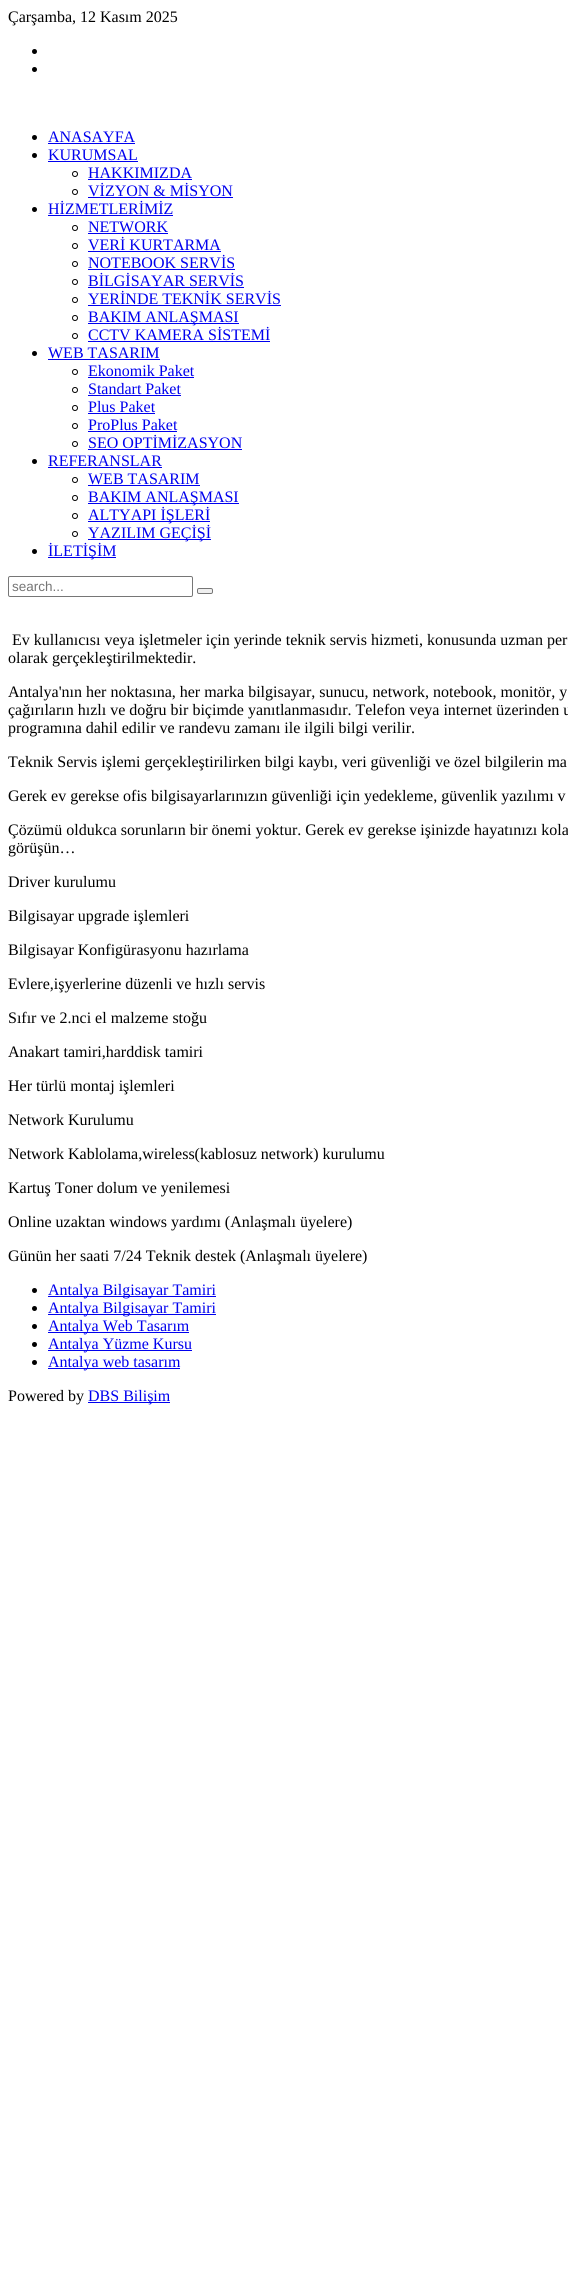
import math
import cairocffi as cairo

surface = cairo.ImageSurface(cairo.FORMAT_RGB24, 568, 2291)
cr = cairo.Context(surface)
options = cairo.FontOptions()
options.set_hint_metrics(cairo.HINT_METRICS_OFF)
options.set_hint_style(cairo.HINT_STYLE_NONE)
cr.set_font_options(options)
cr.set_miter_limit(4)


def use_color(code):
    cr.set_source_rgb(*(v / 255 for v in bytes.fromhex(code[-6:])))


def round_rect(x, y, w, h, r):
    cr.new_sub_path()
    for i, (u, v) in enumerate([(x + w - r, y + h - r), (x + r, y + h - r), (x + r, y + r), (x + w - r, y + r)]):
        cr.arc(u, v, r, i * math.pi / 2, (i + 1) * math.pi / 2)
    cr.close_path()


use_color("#ffffff")
cr.paint()
cr.select_font_face("Liberation Serif")
cr.set_font_size(16)
use_color("#000000")
cr.move_to(8, 22)
cr.show_text("Çarşamba, 12 Kasım 2025")
cr.new_path()
cr.arc(34.5, 51.5, 2.5, 0, 2 * math.pi)
cr.fill()
cr.arc(34.5, 69.5, 2.5, 0, 2 * math.pi)
cr.fill()
cr.arc(34.5, 137.5, 2.5, 0, 2 * math.pi)
cr.fill()
use_color("#0000ee")
cr.move_to(48, 142)
cr.show_text("ANASAYFA")
cr.rectangle(48, 143, 87, 1)
cr.fill()
use_color("#000000")
cr.arc(34.5, 155.5, 2.5, 0, 2 * math.pi)
cr.fill()
use_color("#0000ee")
cr.move_to(48, 160)
cr.show_text("KURUMSAL")
cr.rectangle(48, 161, 90, 1)
cr.fill()
cr.arc(75, 174, 2.5, 0, 2 * math.pi)
use_color("#000000")
cr.set_line_width(1)
cr.stroke()
use_color("#0000ee")
cr.move_to(88, 178)
cr.show_text("HAKKIMIZDA")
cr.rectangle(88, 179, 104, 1)
cr.fill()
cr.arc(75, 192, 2.5, 0, 2 * math.pi)
use_color("#000000")
cr.stroke()
use_color("#0000ee")
cr.move_to(88, 196)
cr.show_text("VİZYON & MİSYON")
cr.rectangle(88, 197, 145, 1)
cr.fill()
use_color("#000000")
cr.arc(34.5, 209.5, 2.5, 0, 2 * math.pi)
cr.fill()
use_color("#0000ee")
cr.move_to(48, 214)
cr.show_text("HİZMETLERİMİZ")
cr.rectangle(48, 215, 125, 1)
cr.fill()
cr.arc(75, 228, 2.5, 0, 2 * math.pi)
use_color("#000000")
cr.stroke()
use_color("#0000ee")
cr.move_to(88, 232)
cr.show_text("NETWORK")
cr.rectangle(88, 233, 80, 1)
cr.fill()
cr.arc(75, 246, 2.5, 0, 2 * math.pi)
use_color("#000000")
cr.stroke()
use_color("#0000ee")
cr.move_to(88, 250)
cr.show_text("VERİ KURTARMA")
cr.rectangle(88, 251, 133, 1)
cr.fill()
cr.arc(75, 264, 2.5, 0, 2 * math.pi)
use_color("#000000")
cr.stroke()
use_color("#0000ee")
cr.move_to(88, 268)
cr.show_text("NOTEBOOK SERVİS")
cr.rectangle(88, 269, 147, 1)
cr.fill()
cr.arc(75, 282, 2.5, 0, 2 * math.pi)
use_color("#000000")
cr.stroke()
use_color("#0000ee")
cr.move_to(88, 286)
cr.show_text("BİLGİSAYAR SERVİS")
cr.rectangle(88, 287, 156, 1)
cr.fill()
cr.arc(75, 300, 2.5, 0, 2 * math.pi)
use_color("#000000")
cr.stroke()
use_color("#0000ee")
cr.move_to(88, 304)
cr.show_text("YERİNDE TEKNİK SERVİS")
cr.rectangle(88, 305, 193, 1)
cr.fill()
cr.arc(75, 318, 2.5, 0, 2 * math.pi)
use_color("#000000")
cr.stroke()
use_color("#0000ee")
cr.rectangle(88, 323, 151, 1)
cr.fill()
cr.move_to(88, 322)
cr.show_text("BAKIM ANLAŞMASI")
cr.new_path()
cr.arc(75, 336, 2.5, 0, 2 * math.pi)
use_color("#000000")
cr.stroke()
use_color("#0000ee")
cr.move_to(88, 340)
cr.show_text("CCTV KAMERA SİSTEMİ")
cr.rectangle(88, 341, 182, 1)
cr.fill()
use_color("#000000")
cr.arc(34.5, 353.5, 2.5, 0, 2 * math.pi)
cr.fill()
use_color("#0000ee")
cr.move_to(48, 358)
cr.show_text("WEB TASARIM")
cr.rectangle(48, 359, 112, 1)
cr.fill()
cr.arc(75, 372, 2.5, 0, 2 * math.pi)
use_color("#000000")
cr.stroke()
use_color("#0000ee")
cr.move_to(88, 376)
cr.show_text("Ekonomik Paket")
cr.rectangle(88, 377, 106, 1)
cr.fill()
cr.arc(75, 390, 2.5, 0, 2 * math.pi)
use_color("#000000")
cr.stroke()
use_color("#0000ee")
cr.move_to(88, 394)
cr.show_text("Standart Paket")
cr.rectangle(88, 395, 93, 1)
cr.fill()
cr.arc(75, 408, 2.5, 0, 2 * math.pi)
use_color("#000000")
cr.stroke()
use_color("#0000ee")
cr.move_to(88, 412)
cr.show_text("Plus Paket")
cr.rectangle(88, 413, 67, 1)
cr.fill()
cr.arc(75, 426, 2.5, 0, 2 * math.pi)
use_color("#000000")
cr.stroke()
use_color("#0000ee")
cr.move_to(88, 430)
cr.show_text("ProPlus Paket")
cr.rectangle(88, 431, 89, 1)
cr.fill()
cr.arc(75, 444, 2.5, 0, 2 * math.pi)
use_color("#000000")
cr.stroke()
use_color("#0000ee")
cr.move_to(88, 448)
cr.show_text("SEO OPTİMİZASYON")
cr.rectangle(88, 449, 154, 1)
cr.fill()
use_color("#000000")
cr.arc(34.5, 461.5, 2.5, 0, 2 * math.pi)
cr.fill()
use_color("#0000ee")
cr.move_to(48, 466)
cr.show_text("REFERANSLAR")
cr.rectangle(48, 467, 114, 1)
cr.fill()
cr.arc(75, 480, 2.5, 0, 2 * math.pi)
use_color("#000000")
cr.stroke()
use_color("#0000ee")
cr.move_to(88, 484)
cr.show_text("WEB TASARIM")
cr.rectangle(88, 485, 112, 1)
cr.fill()
cr.arc(75, 498, 2.5, 0, 2 * math.pi)
use_color("#000000")
cr.stroke()
use_color("#0000ee")
cr.rectangle(88, 503, 151, 1)
cr.fill()
cr.move_to(88, 502)
cr.show_text("BAKIM ANLAŞMASI")
cr.new_path()
cr.arc(75, 516, 2.5, 0, 2 * math.pi)
use_color("#000000")
cr.stroke()
use_color("#0000ee")
cr.rectangle(88, 521, 122, 1)
cr.fill()
cr.move_to(88, 520)
cr.show_text("ALTYAPI İŞLERİ")
cr.new_path()
cr.arc(75, 534, 2.5, 0, 2 * math.pi)
use_color("#000000")
cr.stroke()
use_color("#0000ee")
cr.rectangle(88, 539, 123, 1)
cr.fill()
cr.move_to(88, 538)
cr.show_text("YAZILIM GEÇİŞİ")
use_color("#000000")
cr.new_path()
cr.arc(34.5, 551.5, 2.5, 0, 2 * math.pi)
cr.fill()
use_color("#0000ee")
cr.rectangle(48, 557, 68, 1)
cr.fill()
cr.move_to(48, 556)
cr.show_text("İLETİŞİM")
round_rect(8.5, 576.5, 184, 20, 1.5)
use_color("#767676")
cr.stroke()
cr.select_font_face("Liberation Sans")
cr.set_font_size(13.5)
use_color("#757575")
cr.move_to(12, 591)
cr.show_text("search...")
use_color("#efefef")
round_rect(197.5, 588.5, 15, 5, 1.5)
cr.fill_preserve()
use_color("#767676")
cr.stroke()
cr.select_font_face("Liberation Serif")
cr.set_font_size(16)
use_color("#000000")
cr.move_to(12, 645)
cr.show_text("Ev kullanıcısı veya işletmeler için yerinde teknik servis hizmeti, konusunda uzman per")
cr.move_to(8, 663)
cr.show_text("olarak gerçekleştirilmektedir.")
cr.move_to(8, 697)
cr.show_text("Antalya'nın her noktasına, her marka bilgisayar, sunucu, network, notebook, monitör, y")
cr.move_to(8, 715)
cr.show_text("çağırıların hızlı ve doğru bir biçimde yanıtlanmasıdır. Telefon veya internet üzerinden u")
cr.move_to(8, 733)
cr.show_text("programına dahil edilir ve randevu zamanı ile ilgili bilgi verilir.")
cr.move_to(8, 767)
cr.show_text("Teknik Servis işlemi gerçekleştirilirken bilgi kaybı, veri güvenliği ve özel bilgilerin ma")
cr.move_to(8, 801)
cr.show_text("Gerek ev gerekse ofis bilgisayarlarınızın güvenliği için yedekleme, güvenlik yazılımı v")
cr.move_to(8, 835)
cr.show_text("Çözümü oldukca sorunların bir önemi yoktur. Gerek ev gerekse işinizde hayatınızı kola")
cr.move_to(8, 853)
cr.show_text("görüşün…")
cr.move_to(8, 887)
cr.show_text("Driver kurulumu")
cr.move_to(8, 921)
cr.show_text("Bilgisayar upgrade işlemleri")
cr.move_to(8, 955)
cr.show_text("Bilgisayar Konfigürasyonu hazırlama")
cr.move_to(8, 989)
cr.show_text("Evlere,işyerlerine düzenli ve hızlı servis")
cr.move_to(8, 1023)
cr.show_text("Sıfır ve 2.nci el malzeme stoğu")
cr.move_to(8, 1057)
cr.show_text("Anakart tamiri,harddisk tamiri")
cr.move_to(8, 1091)
cr.show_text("Her türlü montaj işlemleri")
cr.move_to(8, 1125)
cr.show_text("Network Kurulumu")
cr.move_to(8, 1159)
cr.show_text("Network Kablolama,wireless(kablosuz network) kurulumu")
cr.move_to(8, 1193)
cr.show_text("Kartuş Toner dolum ve yenilemesi")
cr.move_to(8, 1227)
cr.show_text("Online uzaktan windows yardımı (Anlaşmalı üyelere)")
cr.move_to(8, 1261)
cr.show_text("Günün her saati 7/24 Teknik destek (Anlaşmalı üyelere)")
cr.new_path()
cr.arc(34.5, 1290.5, 2.5, 0, 2 * math.pi)
cr.fill()
use_color("#0000ee")
cr.rectangle(48, 1296, 168, 1)
cr.fill()
cr.move_to(48, 1295)
cr.show_text("Antalya Bilgisayar Tamiri")
use_color("#000000")
cr.new_path()
cr.arc(34.5, 1308.5, 2.5, 0, 2 * math.pi)
cr.fill()
use_color("#0000ee")
cr.rectangle(48, 1314, 168, 1)
cr.fill()
cr.move_to(48, 1313)
cr.show_text("Antalya Bilgisayar Tamiri")
use_color("#000000")
cr.new_path()
cr.arc(34.5, 1326.5, 2.5, 0, 2 * math.pi)
cr.fill()
use_color("#0000ee")
cr.rectangle(48, 1332, 141, 1)
cr.fill()
cr.move_to(48, 1331)
cr.show_text("Antalya Web Tasarım")
use_color("#000000")
cr.new_path()
cr.arc(34.5, 1344.5, 2.5, 0, 2 * math.pi)
cr.fill()
use_color("#0000ee")
cr.rectangle(48, 1350, 144, 1)
cr.fill()
cr.move_to(48, 1349)
cr.show_text("Antalya Yüzme Kursu")
use_color("#000000")
cr.new_path()
cr.arc(34.5, 1362.5, 2.5, 0, 2 * math.pi)
cr.fill()
use_color("#0000ee")
cr.rectangle(48, 1368, 132, 1)
cr.fill()
cr.move_to(48, 1367)
cr.show_text("Antalya web tasarım")
use_color("#000000")
cr.move_to(8, 1401)
cr.show_text("Powered by")
use_color("#0000ee")
cr.rectangle(88, 1402, 82, 1)
cr.fill()
cr.move_to(88, 1401)
cr.show_text("DBS Bilişim")
surface.write_to_png("result.png")
